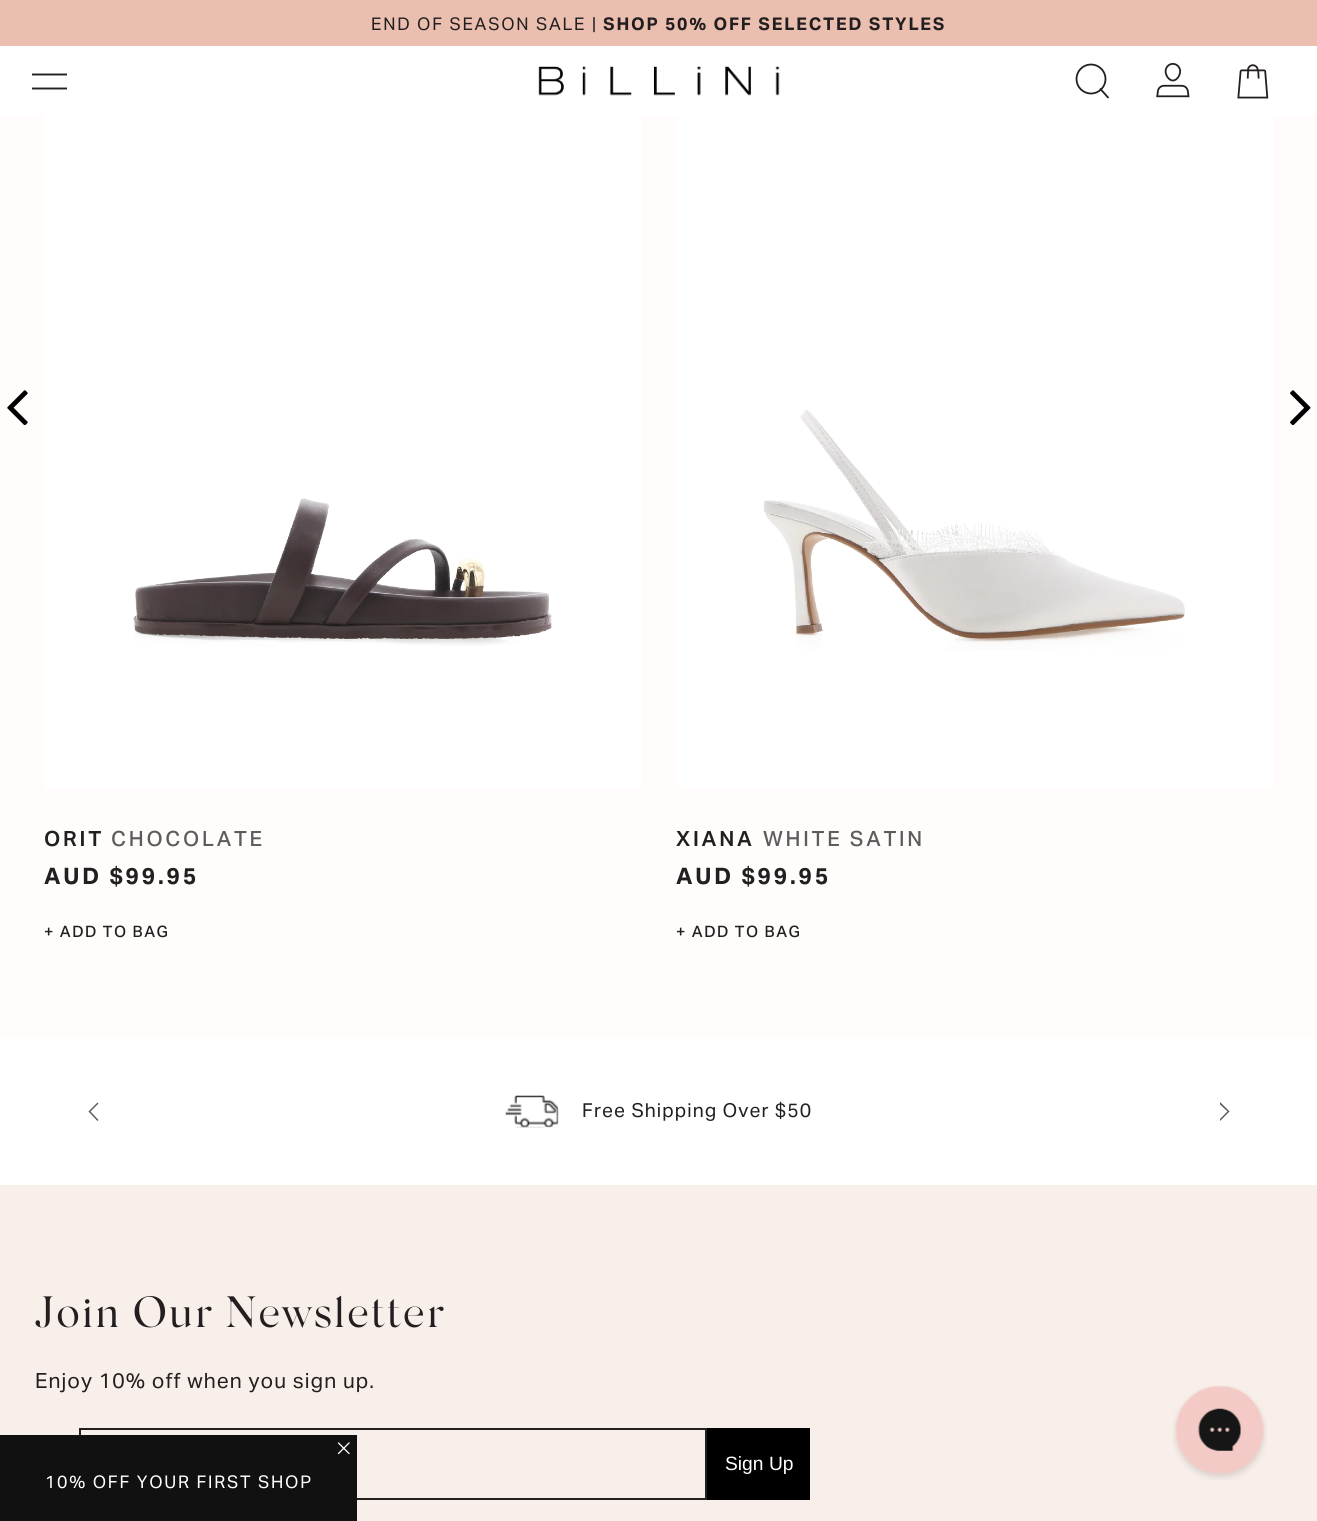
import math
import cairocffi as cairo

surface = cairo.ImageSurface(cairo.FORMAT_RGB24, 1317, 1521)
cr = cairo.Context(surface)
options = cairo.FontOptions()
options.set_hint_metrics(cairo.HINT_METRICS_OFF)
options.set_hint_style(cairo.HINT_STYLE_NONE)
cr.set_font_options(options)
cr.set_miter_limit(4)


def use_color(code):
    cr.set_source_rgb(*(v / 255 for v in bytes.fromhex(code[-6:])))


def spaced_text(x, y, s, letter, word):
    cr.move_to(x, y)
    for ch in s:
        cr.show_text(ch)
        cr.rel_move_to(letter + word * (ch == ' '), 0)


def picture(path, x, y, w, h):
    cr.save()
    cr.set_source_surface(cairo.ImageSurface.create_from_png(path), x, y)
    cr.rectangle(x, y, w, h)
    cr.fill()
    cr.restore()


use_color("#ffffff")
cr.paint()
use_color("#ebbfb0")
cr.rectangle(0, 0, 1317, 46)
cr.fill()
cr.select_font_face("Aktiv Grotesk")
cr.set_font_size(17.5)
use_color("#231f20")
spaced_text(371, 30, "END OF SEASON SALE |", 1.75, 0)
cr.select_font_face("Aktiv Grotesk", cairo.FONT_SLANT_NORMAL, cairo.FONT_WEIGHT_BOLD)
spaced_text(603, 30, "SHOP 50% OFF SELECTED STYLES", 1.75, 0)
cr.save()
cr.rectangle(32, 63, 35, 35)
cr.clip()
cr.new_path()
cr.move_to(31.5, 74.5)
cr.line_to(82, 74.5)
cr.move_to(31.5, 88.5)
cr.line_to(82, 88.5)
cr.set_line_width(1.9)
cr.stroke()
cr.restore()
picture("img1.png", 538, 66, 242, 30)
cr.arc(1091, 79, 14.5, 0, 2 * math.pi)
cr.set_line_width(1.8)
cr.stroke()
cr.new_path()
cr.move_to(1100, 88.5)
cr.line_to(1108.5, 98)
cr.stroke()
picture("img2.png", 1156, 63, 34, 35)
picture("img3.png", 1237, 64, 32, 35)
use_color("#fffcfb")
cr.rectangle(0, 116, 1317, 922)
cr.fill()
picture("img4.png", 7, 390, 21, 35)
picture("img5.png", 1290, 390, 21, 35)
use_color("#ffffff")
cr.rectangle(44, 116, 598, 672)
cr.fill()
picture("img6.png", 133, 498, 419, 148)
cr.select_font_face("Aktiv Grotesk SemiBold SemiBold")
cr.set_font_size(21)
use_color("#231f20")
spaced_text(44, 846, "ORIT", 2.75, 0)
cr.select_font_face("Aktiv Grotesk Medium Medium")
use_color("#5c5c5c")
spaced_text(111, 846, "CHOCOLATE", 2.75, 0)
cr.select_font_face("Aktiv Grotesk", cairo.FONT_SLANT_NORMAL, cairo.FONT_WEIGHT_BOLD)
cr.set_font_size(22.75)
use_color("#231f20")
spaced_text(44, 884, "AUD $99.95", 2.75, 0)
cr.select_font_face("Aktiv Grotesk Medium Medium")
cr.set_font_size(15.75)
spaced_text(44, 937, "+ ADD TO BAG", 1.5, 0)
use_color("#ffffff")
cr.rectangle(677, 116, 597, 672)
cr.fill()
picture("img7.png", 763, 409, 422, 241)
cr.select_font_face("Aktiv Grotesk SemiBold SemiBold")
cr.set_font_size(21)
use_color("#231f20")
spaced_text(676, 846, "XIANA", 2.75, 0)
cr.select_font_face("Aktiv Grotesk Medium Medium")
use_color("#5c5c5c")
spaced_text(763, 846, "WHITE SATIN", 2.75, 0)
cr.select_font_face("Aktiv Grotesk", cairo.FONT_SLANT_NORMAL, cairo.FONT_WEIGHT_BOLD)
cr.set_font_size(22.75)
use_color("#231f20")
spaced_text(676, 884, "AUD $99.95", 2.75, 0)
cr.select_font_face("Aktiv Grotesk Medium Medium")
cr.set_font_size(15.75)
spaced_text(676, 937, "+ ADD TO BAG", 1.5, 0)
use_color("#5a5758")
cr.new_path()
cr.move_to(88.5, 1111.5)
cr.line_to(97.5, 1102.5)
cr.line_to(98.5, 1103.5)
cr.line_to(90.5, 1111.5)
cr.line_to(98.5, 1120)
cr.line_to(97.5, 1121)
cr.close_path()
cr.fill()
picture("img8.png", 505, 1095, 54, 33)
cr.select_font_face("Aktiv Grotesk")
cr.set_font_size(19.25)
use_color("#231f20")
spaced_text(582, 1117, "Free Shipping Over $50", 1.05, 0)
cr.save()
cr.rectangle(1220, 1101, 12, 21)
cr.clip()
use_color("#5a5758")
cr.new_path()
cr.move_to(1229.5, 1111.5)
cr.line_to(1220, 1121)
cr.line_to(1219, 1120)
cr.line_to(1227.5, 1111.5)
cr.line_to(1219, 1103.5)
cr.line_to(1220, 1102)
cr.close_path()
cr.fill()
cr.restore()
use_color("#f9efea")
cr.rectangle(0, 1185, 1317, 336)
cr.fill()
cr.select_font_face("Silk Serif")
cr.set_font_size(43.75)
use_color("#231f20")
spaced_text(35, 1327, "Join Our Newsletter", 1.75, 0)
cr.select_font_face("Aktiv Grotesk")
cr.set_font_size(21)
spaced_text(35, 1388, "Enjoy 10% off when you sign up.", 1.05, 0)
cr.rectangle(80, 1429, 626, 70)
cr.set_line_width(2)
cr.stroke()
use_color("#000000")
cr.rectangle(707, 1428, 103, 72)
cr.fill()
cr.select_font_face("Liberation Sans")
cr.set_font_size(19.25)
use_color("#ffffff")
cr.move_to(725, 1470)
cr.show_text("Sign Up")
picture("img9.png", 1173, 1385, 94, 95)
use_color("#111111")
cr.rectangle(0, 1435, 357, 86)
cr.fill()
cr.new_path()
cr.move_to(338.5, 1443)
cr.line_to(349, 1453.5)
cr.move_to(338.5, 1453.5)
cr.line_to(349, 1443)
cr.close_path()
use_color("#ffffff")
cr.set_line_width(1.3)
cr.set_line_cap(cairo.LINE_CAP_ROUND)
cr.set_line_join(cairo.LINE_JOIN_ROUND)
cr.stroke()
cr.select_font_face("Aktiv Grotesk")
cr.set_font_size(17.5)
spaced_text(45, 1488, "10% OFF YOUR FIRST SHOP", 1.75, 0)
surface.write_to_png("result.png")
